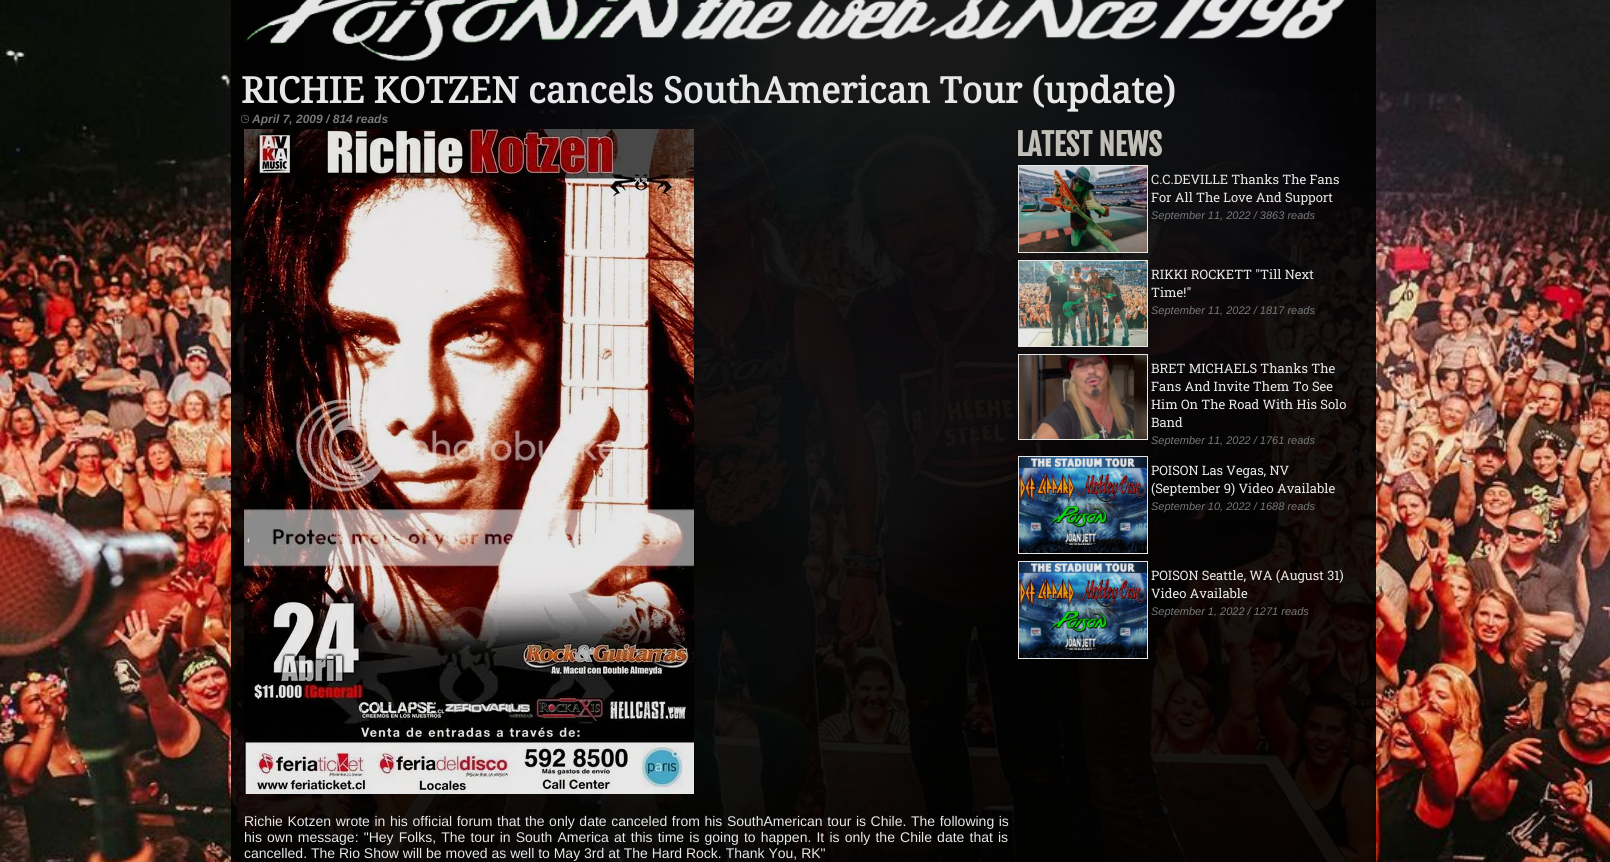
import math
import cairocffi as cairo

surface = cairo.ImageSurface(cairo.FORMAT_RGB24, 1610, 862)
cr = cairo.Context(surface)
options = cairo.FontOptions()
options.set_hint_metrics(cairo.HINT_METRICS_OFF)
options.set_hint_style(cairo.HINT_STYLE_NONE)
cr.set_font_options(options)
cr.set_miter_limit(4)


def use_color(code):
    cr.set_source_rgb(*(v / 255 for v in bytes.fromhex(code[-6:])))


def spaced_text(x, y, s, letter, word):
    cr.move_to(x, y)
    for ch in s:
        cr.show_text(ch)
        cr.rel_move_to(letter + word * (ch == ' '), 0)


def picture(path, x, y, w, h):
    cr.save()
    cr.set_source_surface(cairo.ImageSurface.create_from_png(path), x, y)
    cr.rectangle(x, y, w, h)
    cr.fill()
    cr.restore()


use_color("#ffffff")
cr.paint()
picture("img1.png", 0, 0, 1610, 862)
cr.set_source_rgba(0, 0, 0, 0.9)
cr.rectangle(231, 0, 1145, 862)
cr.fill()
picture("img2.png", 245, 0, 1100, 62)
cr.select_font_face("Droid Serif", cairo.FONT_SLANT_NORMAL, cairo.FONT_WEIGHT_BOLD)
cr.set_font_size(36)
use_color("#e7e7e7")
cr.move_to(241, 103)
cr.show_text("RICHIE KOTZEN cancels SouthAmerican Tour (update)")
picture("img3.png", 241, 115, 8, 8)
cr.select_font_face("Liberation Sans", cairo.FONT_SLANT_ITALIC, cairo.FONT_WEIGHT_BOLD)
cr.set_font_size(12)
use_color("#77787a")
cr.move_to(252, 123)
cr.show_text("April 7, 2009 / 814 reads")
cr.select_font_face("Fjalla One", cairo.FONT_SLANT_NORMAL, cairo.FONT_WEIGHT_BOLD)
cr.set_font_size(30)
use_color("#c1beb8")
cr.move_to(1016, 156)
cr.show_text("LATEST NEWS")
cr.rectangle(1018.5, 165.5, 129, 87)
cr.set_source_rgba(1, 1, 1, 0.9)
cr.set_line_width(1)
cr.stroke()
picture("img4.png", 1019, 166, 128, 86)
cr.select_font_face("Roboto Slab")
cr.set_font_size(13)
use_color("#e7e7e7")
cr.move_to(1151, 184)
cr.show_text("C.C.DEVILLE Thanks The Fans")
cr.move_to(1151, 202)
cr.show_text("For All The Love And Support")
cr.select_font_face("Liberation Sans", cairo.FONT_SLANT_ITALIC)
cr.set_font_size(11)
use_color("#77787a")
cr.move_to(1151, 219)
cr.show_text("September 11, 2022 / 3863 reads")
cr.rectangle(1018.5, 260.5, 129, 86)
cr.set_source_rgba(1, 1, 1, 0.9)
cr.stroke()
picture("img5.png", 1019, 261, 128, 85)
cr.select_font_face("Roboto Slab")
cr.set_font_size(13)
use_color("#e7e7e7")
cr.move_to(1151, 279)
cr.show_text("RIKKI ROCKETT \"Till Next")
cr.move_to(1151, 297)
cr.show_text("Time!\"")
cr.select_font_face("Liberation Sans", cairo.FONT_SLANT_ITALIC)
cr.set_font_size(11)
use_color("#77787a")
cr.move_to(1151, 314)
cr.show_text("September 11, 2022 / 1817 reads")
cr.rectangle(1018.5, 354.5, 129, 85)
cr.set_source_rgba(1, 1, 1, 0.9)
cr.stroke()
picture("img6.png", 1019, 355, 128, 84)
cr.select_font_face("Roboto Slab")
cr.set_font_size(13)
use_color("#e7e7e7")
cr.move_to(1151, 373)
cr.show_text("BRET MICHAELS Thanks The")
cr.move_to(1151, 391)
cr.show_text("Fans And Invite Them To See")
cr.move_to(1151, 409)
cr.show_text("Him On The Road With His Solo")
cr.move_to(1151, 427)
cr.show_text("Band")
cr.select_font_face("Liberation Sans", cairo.FONT_SLANT_ITALIC)
cr.set_font_size(11)
use_color("#77787a")
cr.move_to(1151, 444)
cr.show_text("September 11, 2022 / 1761 reads")
cr.rectangle(1018.5, 456.5, 129, 97)
cr.set_source_rgba(1, 1, 1, 0.9)
cr.stroke()
picture("img7.png", 1019, 457, 128, 96)
cr.select_font_face("Roboto Slab")
cr.set_font_size(13)
use_color("#e7e7e7")
cr.move_to(1151, 475)
cr.show_text("POISON Las Vegas, NV")
cr.move_to(1151, 493)
cr.show_text("(September 9) Video Available")
cr.select_font_face("Liberation Sans", cairo.FONT_SLANT_ITALIC)
cr.set_font_size(11)
use_color("#77787a")
cr.move_to(1151, 510)
cr.show_text("September 10, 2022 / 1688 reads")
cr.rectangle(1018.5, 561.5, 129, 97)
cr.set_source_rgba(1, 1, 1, 0.9)
cr.stroke()
picture("img8.png", 1019, 562, 128, 96)
cr.select_font_face("Roboto Slab")
cr.set_font_size(13)
use_color("#e7e7e7")
cr.move_to(1151, 580)
cr.show_text("POISON Seattle, WA (August 31)")
cr.move_to(1151, 598)
cr.show_text("Video Available")
cr.select_font_face("Liberation Sans", cairo.FONT_SLANT_ITALIC)
cr.set_font_size(11)
use_color("#77787a")
cr.move_to(1151, 615)
cr.show_text("September 1, 2022 / 1271 reads")
picture("img9.png", 244, 129, 450, 665)
cr.select_font_face("Liberation Sans")
cr.set_font_size(14)
use_color("#e7e7e7")
spaced_text(244, 826, "Richie Kotzen wrote in his official forum that the only date canceled from his SouthAmerican tour is Chile. The following is", 0, 0.7)
spaced_text(244, 842, "his own message: \"Hey Folks, The tour in South America at this time is going to happen. It is only the Chile date that is", 0, 1.25)
cr.move_to(244, 858)
cr.show_text("cancelled. The Rio Show will be moved as well to May 3rd at The Hard Rock. Thank You, RK\"")
surface.write_to_png("result.png")
